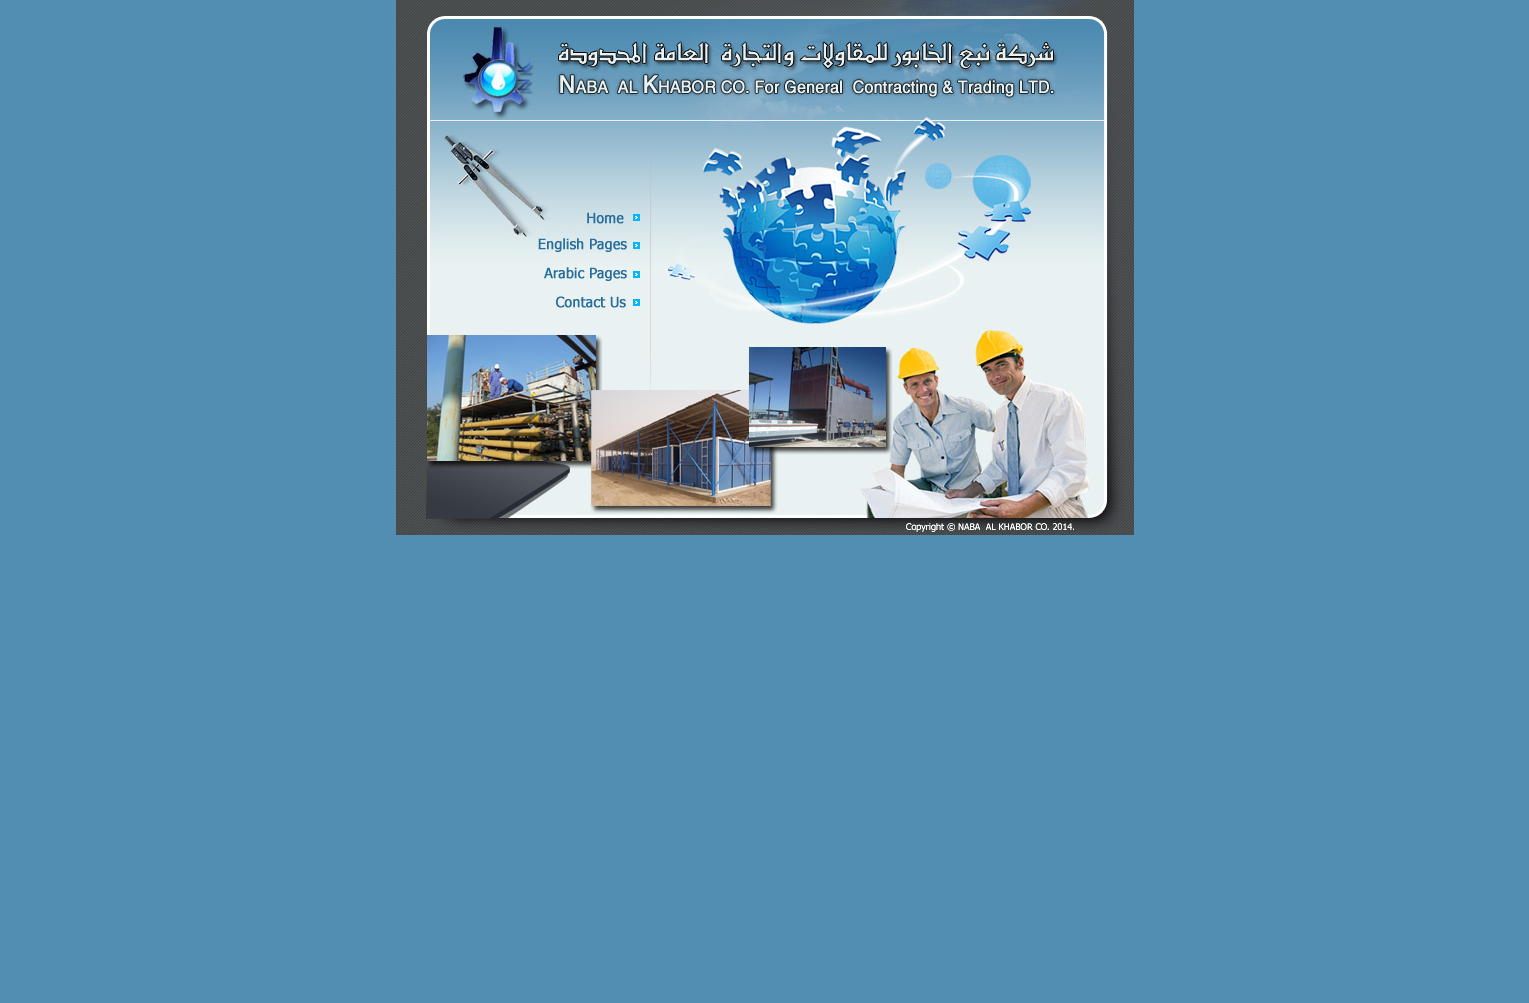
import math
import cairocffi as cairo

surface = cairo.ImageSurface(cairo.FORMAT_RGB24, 1529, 1003)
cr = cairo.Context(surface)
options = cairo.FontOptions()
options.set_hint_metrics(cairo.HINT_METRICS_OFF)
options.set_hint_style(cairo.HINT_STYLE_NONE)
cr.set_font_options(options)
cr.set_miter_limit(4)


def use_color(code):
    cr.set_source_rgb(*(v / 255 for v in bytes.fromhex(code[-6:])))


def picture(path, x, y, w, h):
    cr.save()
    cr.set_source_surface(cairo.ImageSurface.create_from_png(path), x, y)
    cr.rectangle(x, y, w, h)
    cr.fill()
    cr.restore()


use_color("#528eb2")
cr.paint()
picture("img1.png", 396, 0, 738, 189)
picture("img2.png", 396, 189, 738, 42)
picture("img3.png", 396, 231, 738, 29)
picture("img4.png", 396, 260, 738, 28)
picture("img5.png", 396, 288, 738, 46)
picture("img6.png", 396, 334, 738, 201)
surface.write_to_png("result.png")
